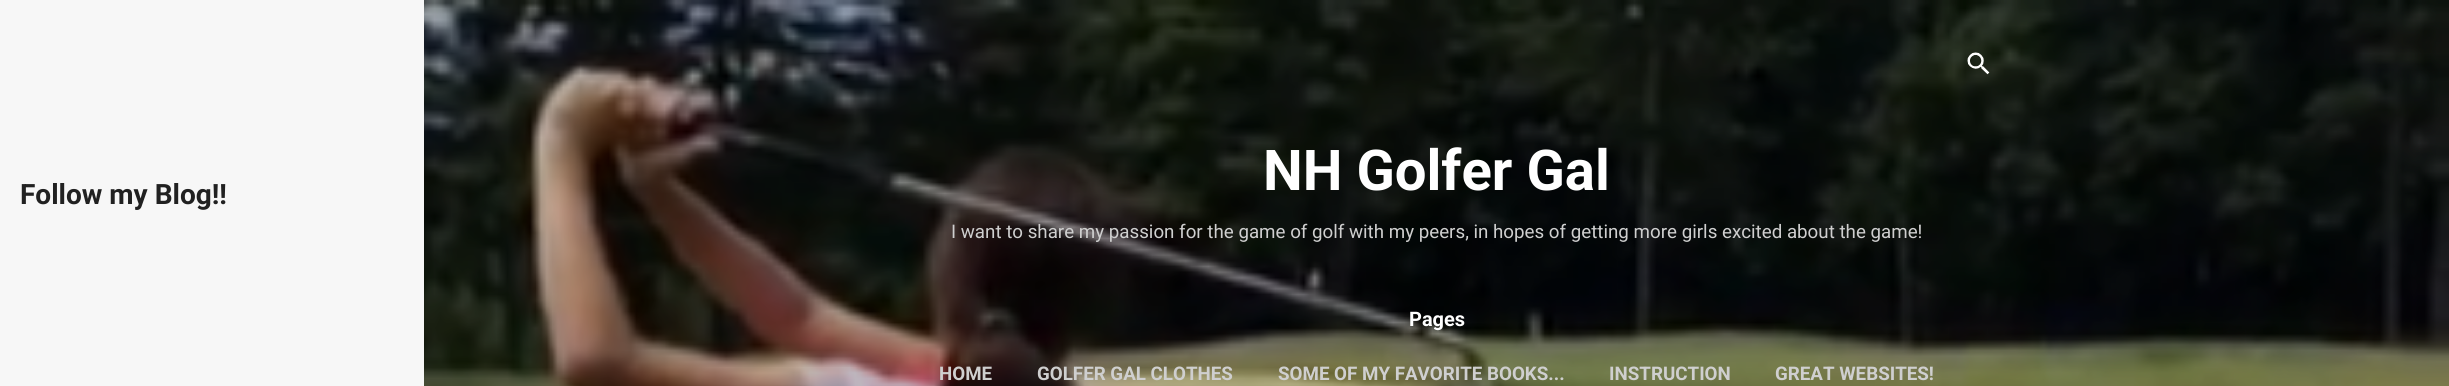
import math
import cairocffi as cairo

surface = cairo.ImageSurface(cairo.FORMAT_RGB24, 2449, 386)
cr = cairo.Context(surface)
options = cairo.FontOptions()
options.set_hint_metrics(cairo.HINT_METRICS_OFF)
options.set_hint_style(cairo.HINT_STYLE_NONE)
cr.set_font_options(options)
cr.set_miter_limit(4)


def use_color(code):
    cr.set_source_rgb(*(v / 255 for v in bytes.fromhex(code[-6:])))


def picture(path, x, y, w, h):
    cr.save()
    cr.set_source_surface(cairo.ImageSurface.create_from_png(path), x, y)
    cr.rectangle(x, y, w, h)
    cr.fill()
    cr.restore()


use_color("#ffffff")
cr.paint()
use_color("#f7f7f7")
cr.rectangle(0, 0, 424, 386)
cr.fill()
cr.select_font_face("Roboto", cairo.FONT_SLANT_NORMAL, cairo.FONT_WEIGHT_BOLD)
cr.set_font_size(28)
use_color("#212121")
cr.move_to(20, 204)
cr.show_text("Follow my Blog!!")
picture("img1.png", 424, 0, 2025, 386)
picture("img2.png", 1967, 52, 23, 23)
cr.set_font_size(56.25)
use_color("#ffffff")
cr.move_to(1263, 190)
cr.show_text("NH Golfer Gal")
cr.select_font_face("Roboto")
cr.set_font_size(18.75)
use_color("#cfcfcf")
cr.move_to(951, 238)
cr.show_text("I want to share my passion for the game of golf with my peers, in hopes of getting more girls excited about the game!")
cr.select_font_face("Roboto", cairo.FONT_SLANT_NORMAL, cairo.FONT_WEIGHT_BOLD)
cr.set_font_size(20)
use_color("#ffffff")
cr.move_to(1409, 326)
cr.show_text("Pages")
cr.set_font_size(18.75)
use_color("#cfcfcf")
cr.move_to(939, 380)
cr.show_text("HOME")
cr.move_to(1037, 380)
cr.show_text("GOLFER GAL CLOTHES")
cr.move_to(1278, 380)
cr.show_text("SOME OF MY FAVORITE BOOKS...")
cr.move_to(1609, 380)
cr.show_text("INSTRUCTION")
cr.move_to(1775, 380)
cr.show_text("GREAT WEBSITES!")
surface.write_to_png("result.png")
